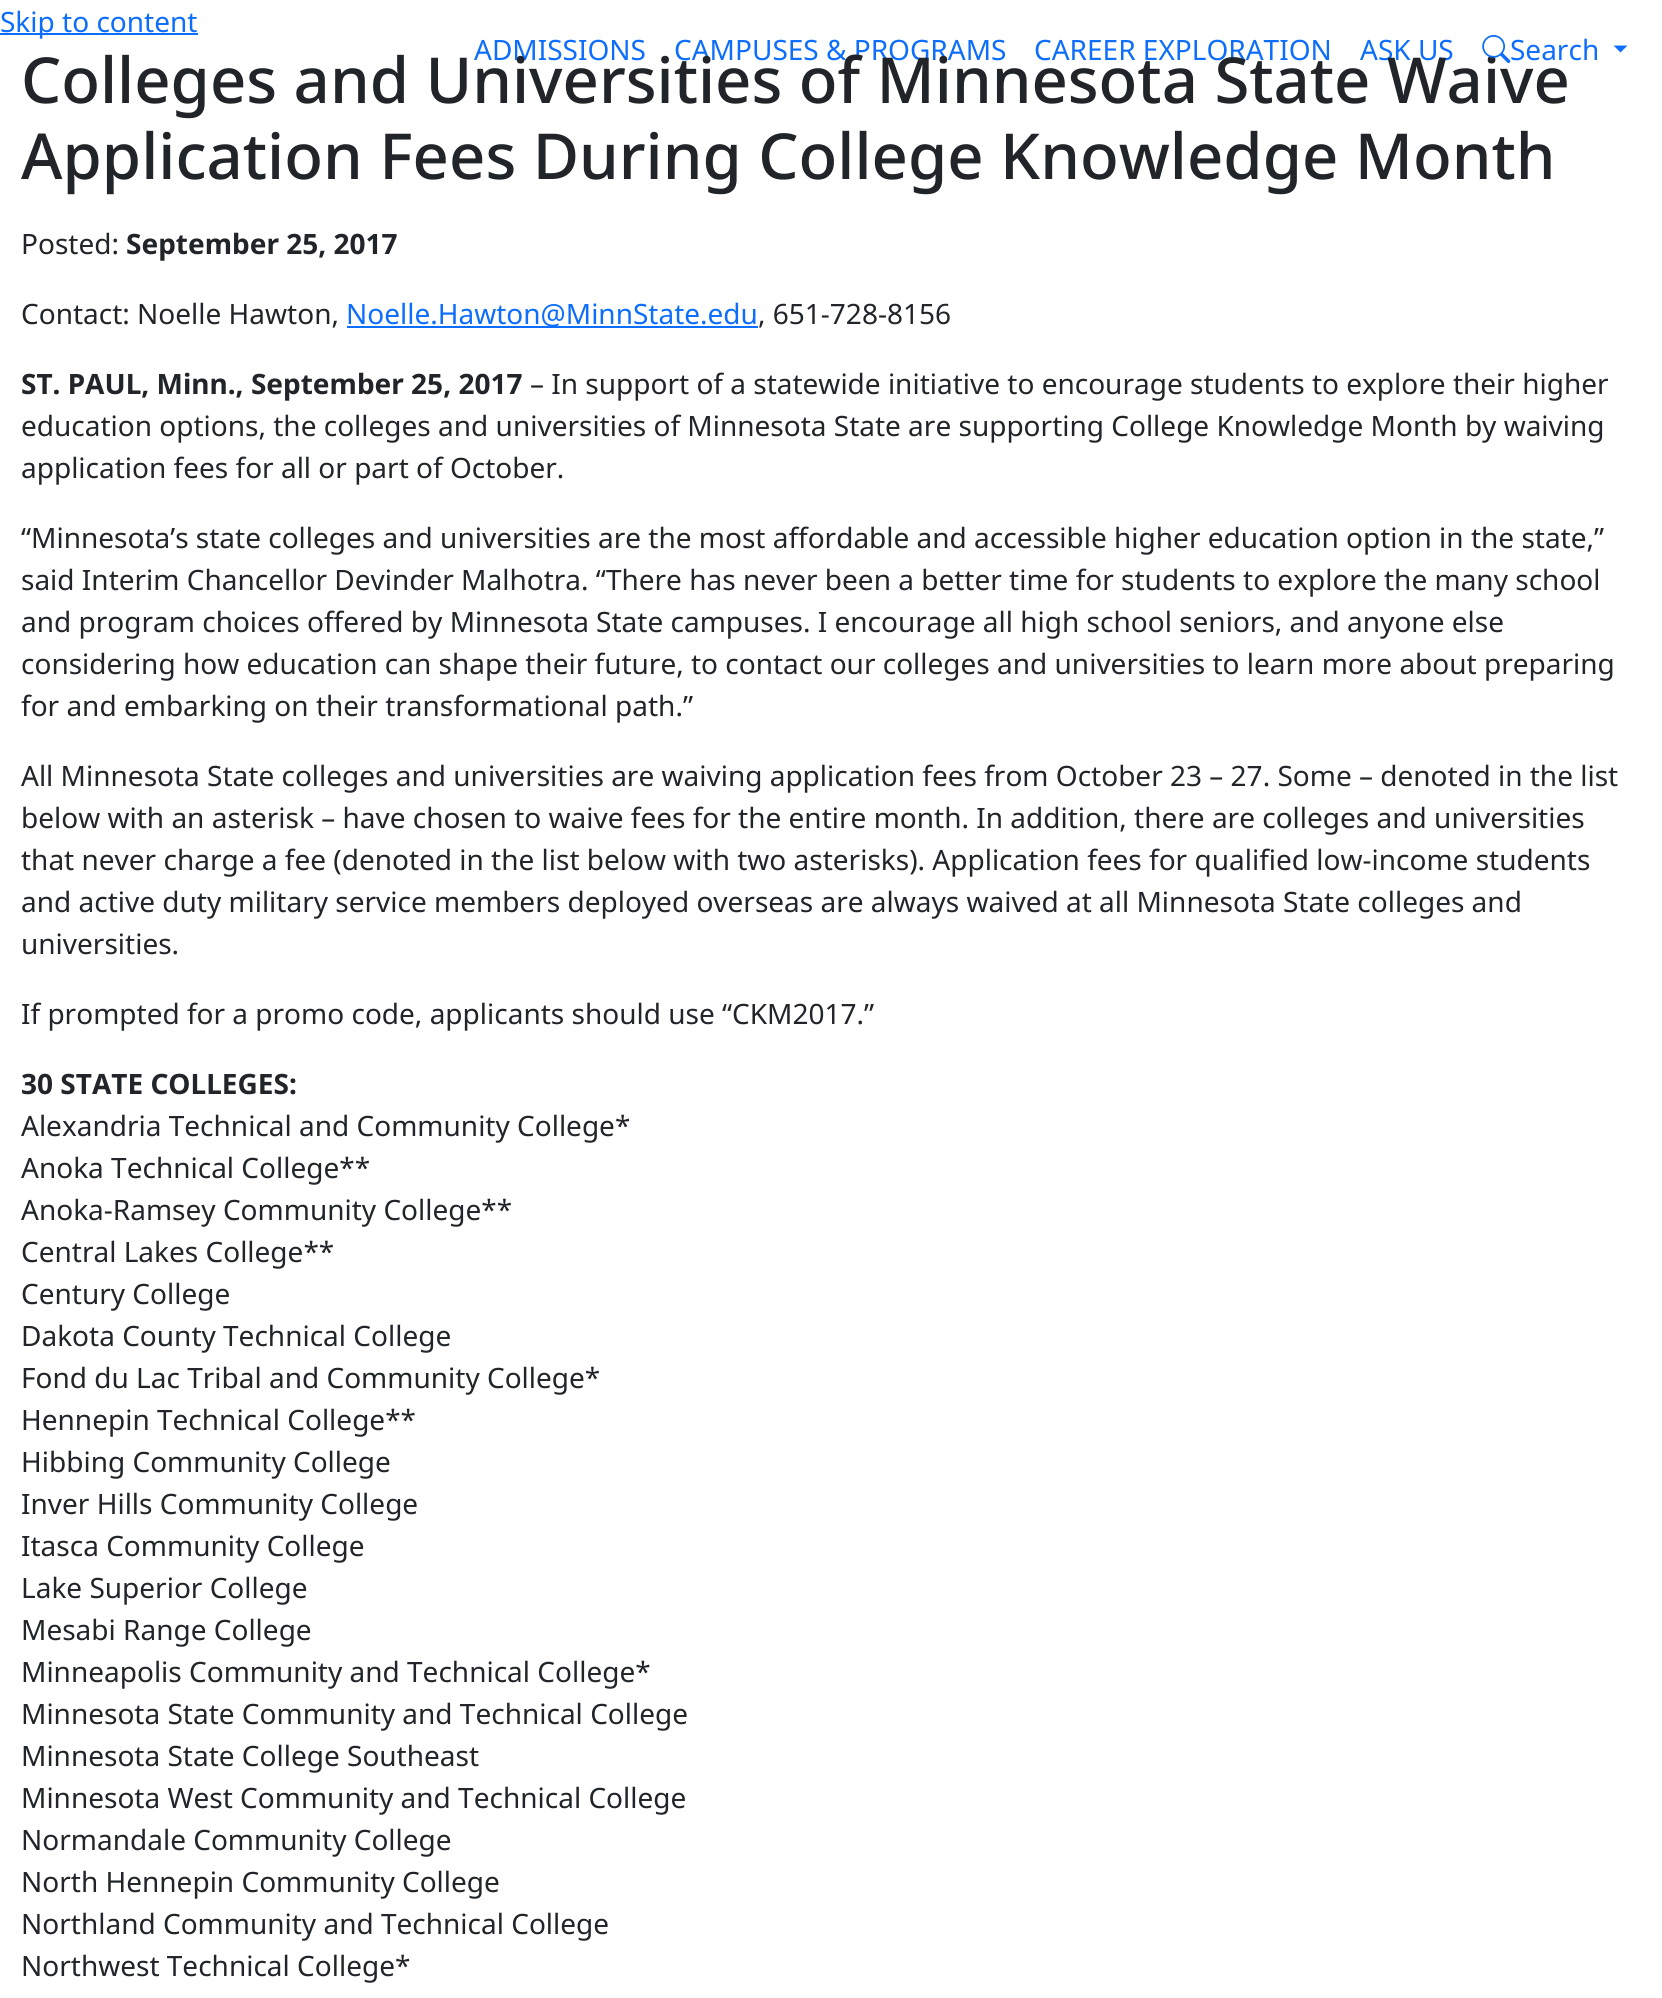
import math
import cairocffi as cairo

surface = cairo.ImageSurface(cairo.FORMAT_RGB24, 1662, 1998)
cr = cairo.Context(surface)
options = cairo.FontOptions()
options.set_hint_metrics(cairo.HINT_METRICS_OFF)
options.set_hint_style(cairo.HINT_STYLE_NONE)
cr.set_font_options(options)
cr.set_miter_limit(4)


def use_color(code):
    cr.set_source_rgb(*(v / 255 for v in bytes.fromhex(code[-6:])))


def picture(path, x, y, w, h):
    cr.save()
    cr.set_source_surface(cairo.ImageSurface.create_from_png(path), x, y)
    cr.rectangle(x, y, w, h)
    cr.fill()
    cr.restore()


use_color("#ffffff")
cr.paint()
use_color("#0d6efd")
cr.rectangle(0, 33, 198, 2)
cr.fill()
cr.select_font_face("Noto Sans")
cr.set_font_size(28)
cr.move_to(0, 32)
cr.show_text("Skip to content")
cr.move_to(474, 60)
cr.show_text("ADMISSIONS")
cr.move_to(674, 60)
cr.show_text("CAMPUSES & PROGRAMS")
cr.move_to(1034, 60)
cr.show_text("CAREER EXPLORATION")
cr.move_to(1360, 60)
cr.show_text("ASK US")
cr.select_font_face("Noto Sans Medium")
cr.set_font_size(63.4)
use_color("#212529")
cr.move_to(21, 103)
cr.show_text("Colleges and Universities of Minnesota State Waive")
picture("img1.png", 1482, 35, 29, 28)
cr.select_font_face("Noto Sans")
cr.set_font_size(28)
use_color("#0d6efd")
cr.move_to(1510, 60)
cr.show_text("Search")
cr.new_path()
cr.move_to(1613.5, 45.5)
cr.line_to(1627.5, 45.5)
cr.line_to(1620.5, 52.5)
cr.close_path()
cr.fill()
cr.select_font_face("Noto Sans Medium")
cr.set_font_size(63.4)
use_color("#212529")
cr.move_to(21, 179)
cr.show_text("Application Fees During College Knowledge Month")
cr.select_font_face("Noto Sans")
cr.set_font_size(28)
cr.move_to(21, 254)
cr.show_text("Posted:")
cr.select_font_face("Noto Sans", cairo.FONT_SLANT_NORMAL, cairo.FONT_WEIGHT_BOLD)
cr.move_to(126, 254)
cr.show_text("September 25, 2017")
cr.select_font_face("Noto Sans")
cr.move_to(21, 324)
cr.show_text("Contact: Noelle Hawton,")
use_color("#0d6efd")
cr.rectangle(347, 326, 411, 2)
cr.fill()
cr.move_to(346, 324)
cr.show_text("Noelle.Hawton@MinnState.edu")
use_color("#212529")
cr.move_to(758, 324)
cr.show_text(", 651-728-8156")
cr.select_font_face("Noto Sans", cairo.FONT_SLANT_NORMAL, cairo.FONT_WEIGHT_BOLD)
cr.move_to(21, 394)
cr.show_text("ST. PAUL, Minn., September 25, 2017")
cr.select_font_face("Noto Sans")
cr.move_to(530, 394)
cr.show_text("– In support of a statewide initiative to encourage students to explore their higher")
cr.move_to(21, 436)
cr.show_text("education options, the colleges and universities of Minnesota State are supporting College Knowledge Month by waiving")
cr.move_to(21, 478)
cr.show_text("application fees for all or part of October.")
cr.move_to(21, 548)
cr.show_text("“Minnesota’s state colleges and universities are the most affordable and accessible higher education option in the state,”")
cr.move_to(21, 590)
cr.show_text("said Interim Chancellor Devinder Malhotra. “There has never been a better time for students to explore the many school")
cr.move_to(21, 632)
cr.show_text("and program choices offered by Minnesota State campuses. I encourage all high school seniors, and anyone else")
cr.move_to(21, 674)
cr.show_text("considering how education can shape their future, to contact our colleges and universities to learn more about preparing")
cr.move_to(21, 716)
cr.show_text("for and embarking on their transformational path.”")
cr.move_to(21, 786)
cr.show_text("All Minnesota State colleges and universities are waiving application fees from October 23 – 27. Some – denoted in the list")
cr.move_to(21, 828)
cr.show_text("below with an asterisk – have chosen to waive fees for the entire month. In addition, there are colleges and universities")
cr.move_to(21, 870)
cr.show_text("that never charge a fee (denoted in the list below with two asterisks). Application fees for qualified low-income students")
cr.move_to(21, 912)
cr.show_text("and active duty military service members deployed overseas are always waived at all Minnesota State colleges and")
cr.move_to(21, 954)
cr.show_text("universities.")
cr.move_to(21, 1024)
cr.show_text("If prompted for a promo code, applicants should use “CKM2017.”")
cr.select_font_face("Noto Sans", cairo.FONT_SLANT_NORMAL, cairo.FONT_WEIGHT_BOLD)
cr.move_to(21, 1094)
cr.show_text("30 STATE COLLEGES:")
cr.select_font_face("Noto Sans")
cr.move_to(21, 1136)
cr.show_text("Alexandria Technical and Community College*")
cr.move_to(21, 1178)
cr.show_text("Anoka Technical College**")
cr.move_to(21, 1220)
cr.show_text("Anoka-Ramsey Community College**")
cr.move_to(21, 1262)
cr.show_text("Central Lakes College**")
cr.move_to(21, 1304)
cr.show_text("Century College")
cr.move_to(21, 1346)
cr.show_text("Dakota County Technical College")
cr.move_to(21, 1388)
cr.show_text("Fond du Lac Tribal and Community College*")
cr.move_to(21, 1430)
cr.show_text("Hennepin Technical College**")
cr.move_to(21, 1472)
cr.show_text("Hibbing Community College")
cr.move_to(21, 1514)
cr.show_text("Inver Hills Community College")
cr.move_to(21, 1556)
cr.show_text("Itasca Community College")
cr.move_to(21, 1598)
cr.show_text("Lake Superior College")
cr.move_to(21, 1640)
cr.show_text("Mesabi Range College")
cr.move_to(21, 1682)
cr.show_text("Minneapolis Community and Technical College*")
cr.move_to(21, 1724)
cr.show_text("Minnesota State Community and Technical College")
cr.move_to(21, 1766)
cr.show_text("Minnesota State College Southeast")
cr.move_to(21, 1808)
cr.show_text("Minnesota West Community and Technical College")
cr.move_to(21, 1850)
cr.show_text("Normandale Community College")
cr.move_to(21, 1892)
cr.show_text("North Hennepin Community College")
cr.move_to(21, 1934)
cr.show_text("Northland Community and Technical College")
cr.move_to(21, 1976)
cr.show_text("Northwest Technical College*")
surface.write_to_png("result.png")
